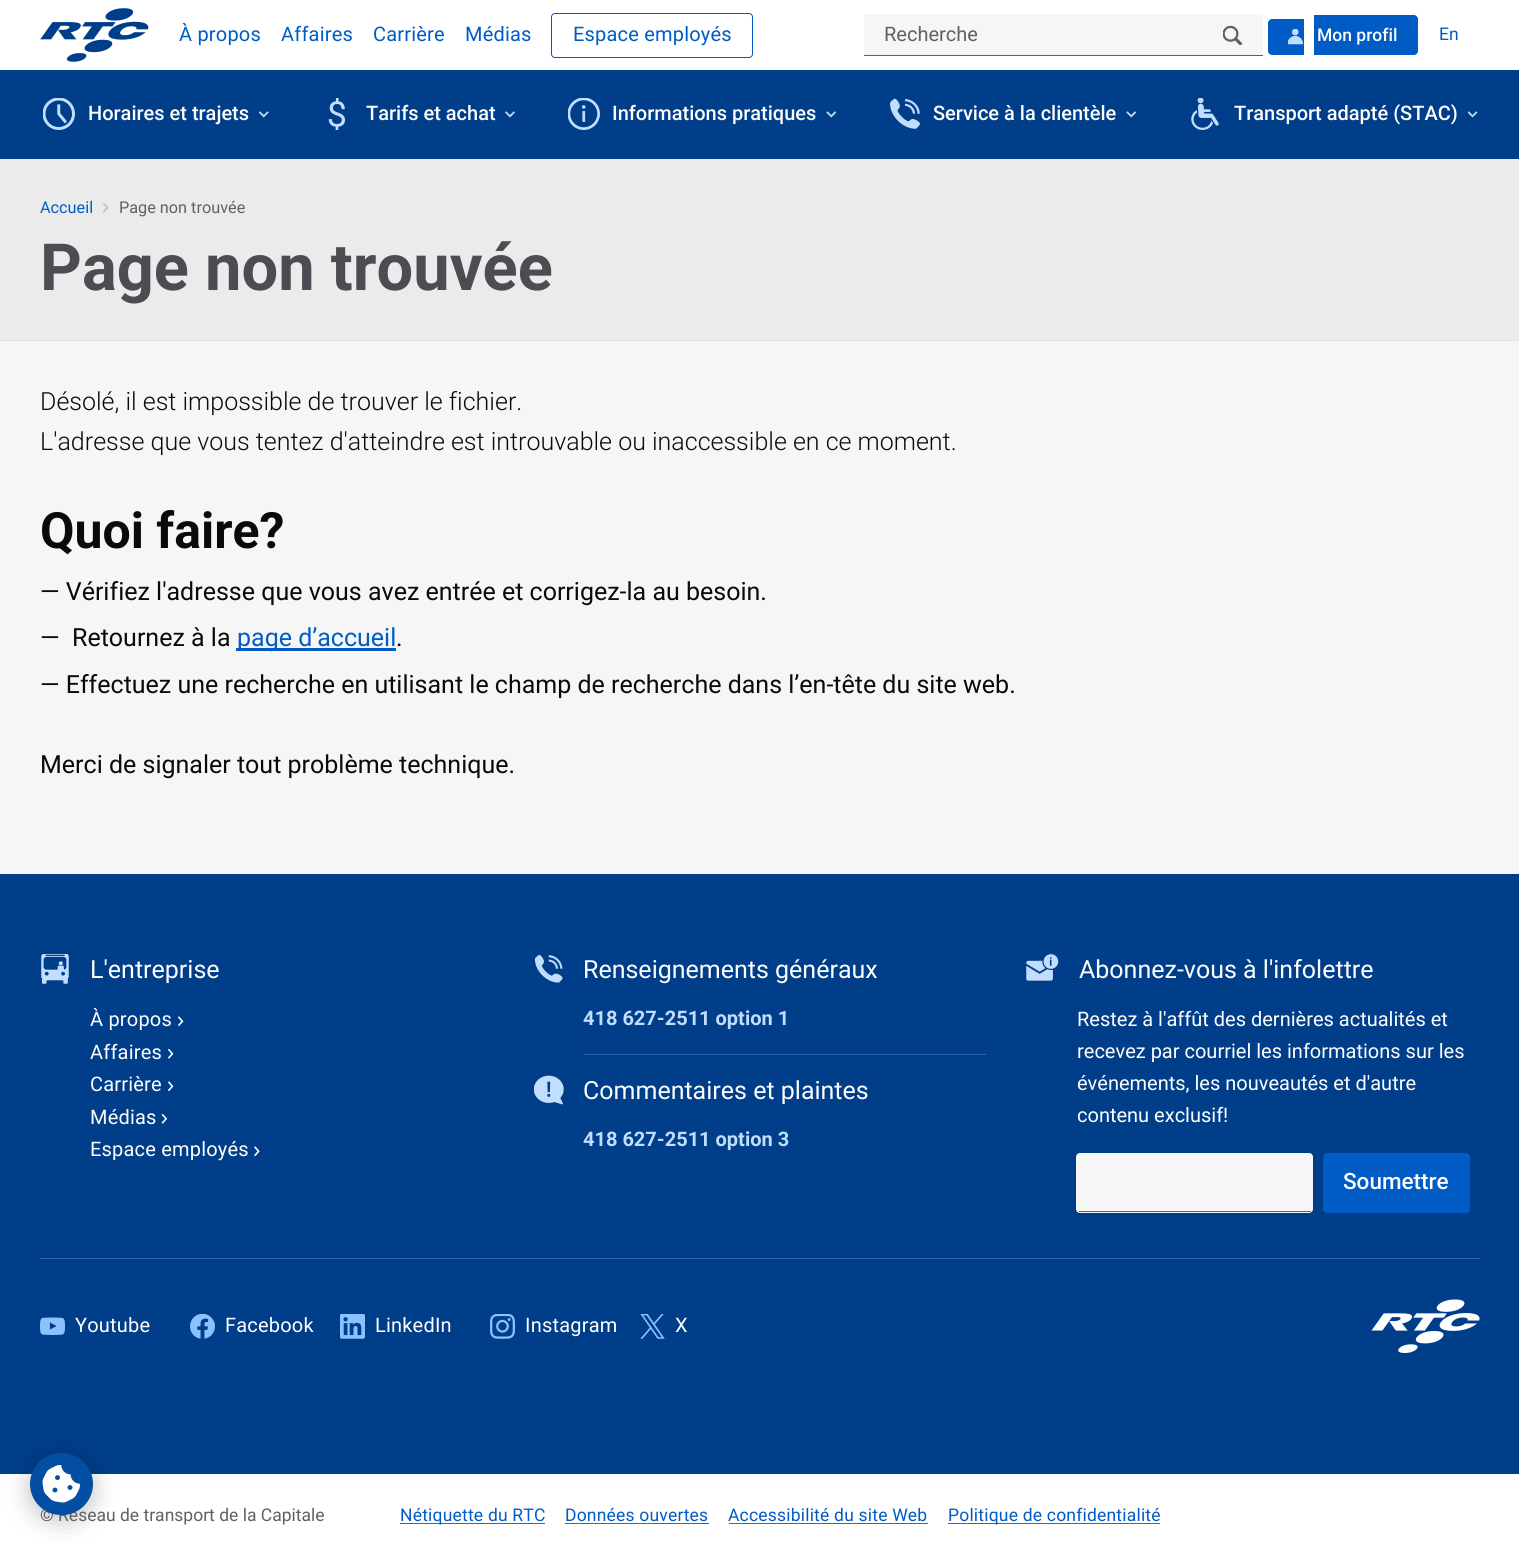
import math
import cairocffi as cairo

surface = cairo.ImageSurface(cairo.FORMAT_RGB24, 1519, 1544)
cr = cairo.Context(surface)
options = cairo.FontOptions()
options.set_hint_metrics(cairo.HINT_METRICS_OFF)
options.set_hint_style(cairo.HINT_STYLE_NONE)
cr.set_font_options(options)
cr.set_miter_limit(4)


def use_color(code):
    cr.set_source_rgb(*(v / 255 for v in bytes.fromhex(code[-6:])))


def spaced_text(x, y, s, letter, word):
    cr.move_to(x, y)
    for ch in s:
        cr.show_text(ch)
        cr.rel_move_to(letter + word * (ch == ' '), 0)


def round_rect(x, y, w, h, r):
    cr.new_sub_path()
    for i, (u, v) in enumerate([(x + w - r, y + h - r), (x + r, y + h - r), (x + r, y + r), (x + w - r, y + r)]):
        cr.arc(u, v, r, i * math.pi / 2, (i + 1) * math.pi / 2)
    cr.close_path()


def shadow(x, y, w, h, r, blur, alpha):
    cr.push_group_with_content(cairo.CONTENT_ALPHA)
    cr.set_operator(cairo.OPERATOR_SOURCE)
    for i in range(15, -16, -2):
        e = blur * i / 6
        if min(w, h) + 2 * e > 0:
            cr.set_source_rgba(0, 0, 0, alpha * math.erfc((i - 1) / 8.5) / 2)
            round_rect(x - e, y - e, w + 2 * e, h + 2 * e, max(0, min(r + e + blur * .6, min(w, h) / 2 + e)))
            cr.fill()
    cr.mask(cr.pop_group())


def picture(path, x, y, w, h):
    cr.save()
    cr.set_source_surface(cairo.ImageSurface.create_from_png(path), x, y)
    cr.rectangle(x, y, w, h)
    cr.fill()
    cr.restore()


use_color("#f6f6f7")
cr.paint()
use_color("#ffffff")
cr.rectangle(0, 0, 1519, 70)
cr.fill()
picture("img1.png", 40, 8, 109, 54)
cr.select_font_face("Roboto")
cr.set_font_size(20)
use_color("#005cc4")
spaced_text(179, 41, "À propos", 0.2, 0)
spaced_text(281, 41, "Affaires", 0.2, 0)
spaced_text(373, 41, "Carrière", 0.2, 0)
spaced_text(465, 41, "Médias", 0.2, 0)
round_rect(551.5, 13.5, 201, 44, 3.5)
cr.set_line_width(1)
cr.stroke()
spaced_text(573, 41, "Espace employés", 0.2, 0)
use_color("#f6f6f7")
cr.rectangle(864, 14, 399, 41)
cr.fill()
use_color("#5f6167")
cr.rectangle(864, 55, 399, 1)
cr.fill()
cr.move_to(884, 41)
cr.show_text("Recherche")
picture("img2.png", 1223, 25, 20, 20)
use_color("#005cc4")
cr.new_path()
cr.move_to(1272, 19)
cr.line_to(1304, 19)
cr.line_to(1304, 55)
cr.line_to(1272, 55)
cr.curve_to(1270, 55, 1268, 53, 1268, 51)
cr.line_to(1268, 23)
cr.curve_to(1268, 21, 1270, 19, 1272, 19)
cr.close_path()
cr.fill()
picture("img3.png", 1288, 29, 15, 16)
cr.new_path()
cr.move_to(1314, 15)
cr.line_to(1414, 15)
cr.curve_to(1416, 15, 1418, 17, 1418, 19)
cr.line_to(1418, 51)
cr.curve_to(1418, 53, 1416, 55, 1414, 55)
cr.line_to(1314, 55)
cr.close_path()
cr.fill()
cr.select_font_face("Roboto Medium")
cr.set_font_size(17.5)
use_color("#fefefe")
cr.move_to(1317, 41)
cr.show_text("Mon profil")
cr.select_font_face("Roboto")
use_color("#005cc4")
cr.move_to(1439, 40)
cr.show_text("En")
use_color("#003e8a")
cr.rectangle(0, 70, 1519, 89)
cr.fill()
picture("img4.png", 43, 98, 32, 32)
cr.select_font_face("Roboto Medium")
cr.set_font_size(20)
use_color("#fefefe")
cr.move_to(88, 120)
cr.show_text("Horaires et trajets")
picture("img5.png", 259, 111, 10, 7)
picture("img6.png", 328, 98, 17, 32)
cr.move_to(366, 120)
cr.show_text("Tarifs et achat")
picture("img7.png", 505, 111, 10, 7)
picture("img8.png", 568, 98, 32, 32)
cr.move_to(612, 120)
cr.show_text("Informations pratiques")
picture("img9.png", 826, 111, 10, 7)
picture("img10.png", 890, 98, 30, 31)
cr.move_to(933, 120)
cr.show_text("Service à la clientèle")
picture("img9.png", 1126, 111, 10, 7)
picture("img11.png", 1191, 98, 28, 32)
cr.move_to(1234, 120)
cr.show_text("Transport adapté (STAC)")
picture("img12.png", 1468, 111, 10, 7)
use_color("#003e8a")
cr.rectangle(0, 874, 1519, 600)
cr.fill()
use_color("#ffffff")
cr.rectangle(0, 1474, 1519, 70)
cr.fill()
use_color("#000000")
shadow(30, 1458, 63, 62, 31, 12.5, 0.24)
cr.select_font_face("Roboto")
cr.set_font_size(17.5)
use_color("#5f6167")
cr.move_to(40, 1521)
cr.show_text("© Réseau de transport de la Capitale")
use_color("#034ea2")
round_rect(30, 1453, 63, 62, 31)
cr.fill()
picture("img13.png", 42, 1465, 38, 38)
use_color("#ebebec")
cr.rectangle(0, 159, 1519, 181)
cr.fill()
use_color("#e1e2e5")
cr.rectangle(0, 340, 1519, 1)
cr.fill()
cr.set_font_size(16.25)
use_color("#005cc4")
cr.move_to(40, 213)
cr.show_text("Accueil")
picture("img14.png", 103, 202, 6, 11)
use_color("#5f6167")
cr.move_to(119, 213)
cr.show_text("Page non trouvée")
cr.select_font_face("Roboto", cairo.FONT_SLANT_NORMAL, cairo.FONT_WEIGHT_BOLD)
cr.set_font_size(65)
use_color("#4c4d52")
cr.move_to(40, 290)
cr.show_text("Page non trouvée")
cr.select_font_face("Roboto Light")
cr.set_font_size(25)
use_color("#0a0a0a")
cr.move_to(40, 410)
cr.show_text("Désolé, il est impossible de trouver le fichier.")
cr.move_to(40, 450)
cr.show_text("L'adresse que vous tentez d'atteindre est introuvable ou inaccessible en ce moment.")
cr.select_font_face("Roboto", cairo.FONT_SLANT_NORMAL, cairo.FONT_WEIGHT_BOLD)
cr.set_font_size(50)
cr.move_to(40, 548)
cr.show_text("Quoi faire?")
cr.select_font_face("Roboto")
cr.set_font_size(25)
cr.move_to(40, 600)
cr.show_text("— Vérifiez l'adresse que vous avez entrée et corrigez-la au besoin.")
cr.move_to(40, 646)
cr.show_text("—")
cr.move_to(72, 646)
cr.show_text("Retournez à la")
use_color("#005cc4")
cr.rectangle(236, 648, 160, 3)
cr.fill()
cr.move_to(237, 646)
cr.show_text("page d’accueil")
use_color("#0a0a0a")
cr.move_to(396, 646)
cr.show_text(".")
cr.move_to(40, 693)
cr.show_text("— Effectuez une recherche en utilisant le champ de recherche dans l’en-tête du site web.")
cr.move_to(40, 773)
cr.show_text("Merci de signaler tout problème technique.")
picture("img15.png", 41, 954, 28, 30)
use_color("#fefefe")
cr.move_to(90, 978)
cr.show_text("L'entreprise")
cr.set_font_size(20)
spaced_text(90, 1026, "À propos", 0.2, 0)
picture("img16.png", 178, 1016, 6, 10)
spaced_text(90, 1059, "Affaires", 0.2, 0)
picture("img17.png", 168, 1049, 6, 10)
spaced_text(90, 1091, "Carrière", 0.2, 0)
picture("img16.png", 168, 1081, 6, 10)
spaced_text(90, 1124, "Médias", 0.2, 0)
picture("img18.png", 161, 1114, 7, 10)
spaced_text(90, 1156, "Espace employés", 0.2, 0)
picture("img19.png", 254, 1146, 6, 10)
picture("img20.png", 534, 954, 29, 29)
cr.set_font_size(25)
cr.move_to(583, 978)
cr.show_text("Renseignements généraux")
use_color("#3066a7")
cr.rectangle(584, 1054, 402, 1)
cr.fill()
cr.select_font_face("Roboto", cairo.FONT_SLANT_NORMAL, cairo.FONT_WEIGHT_BOLD)
cr.set_font_size(20)
use_color("#c1deff")
cr.move_to(583, 1025)
cr.show_text("418 627-2511 option 1")
picture("img21.png", 534, 1075, 30, 30)
cr.select_font_face("Roboto")
cr.set_font_size(25)
use_color("#fefefe")
cr.move_to(583, 1099)
cr.show_text("Commentaires et plaintes")
cr.select_font_face("Roboto", cairo.FONT_SLANT_NORMAL, cairo.FONT_WEIGHT_BOLD)
cr.set_font_size(20)
use_color("#c1deff")
cr.move_to(583, 1146)
cr.show_text("418 627-2511 option 3")
picture("img22.png", 1026, 954, 33, 27)
cr.select_font_face("Roboto")
cr.set_font_size(25)
use_color("#fefefe")
cr.move_to(1079, 978)
cr.show_text("Abonnez-vous à l'infolettre")
cr.set_font_size(20)
cr.move_to(1077, 1026)
cr.show_text("Restez à l'affût des dernières actualités et")
cr.move_to(1077, 1058)
cr.show_text("recevez par courriel les informations sur les")
cr.move_to(1077, 1090)
cr.show_text("événements, les nouveautés et d'autre")
cr.move_to(1077, 1122)
cr.show_text("contenu exclusif!")
use_color("#f6f6f7")
round_rect(1076, 1153, 237, 60, 4)
cr.fill()
use_color("#5f6167")
cr.rectangle(1079, 1211, 232, 1)
cr.fill()
use_color("#005cc4")
round_rect(1323, 1153, 147, 60, 4)
cr.fill()
cr.select_font_face("Roboto Medium")
cr.set_font_size(22.5)
use_color("#fefefe")
cr.move_to(1343, 1189)
cr.show_text("Soumettre")
use_color("#3066a7")
cr.rectangle(40, 1258, 1440, 1)
cr.fill()
picture("img23.png", 40, 1317, 25, 18)
cr.select_font_face("Roboto")
cr.set_font_size(20)
use_color("#fefefe")
spaced_text(75, 1332, "Youtube", 0.2, 0)
picture("img24.png", 190, 1314, 25, 25)
spaced_text(225, 1332, "Facebook", 0.2, 0)
picture("img25.png", 340, 1314, 25, 25)
spaced_text(375, 1332, "LinkedIn", 0.2, 0)
picture("img26.png", 490, 1314, 25, 25)
spaced_text(525, 1332, "Instagram", 0.2, 0)
picture("img27.png", 640, 1314, 25, 25)
spaced_text(675, 1332, "X", 0.2, 0)
picture("img28.png", 1371, 1299, 109, 54)
use_color("#5f6167")
cr.rectangle(400, 1523, 145, 1)
cr.fill()
cr.set_font_size(17.5)
use_color("#005cc4")
spaced_text(400, 1521, "Nétiquette du RTC", 0.2, 0)
spaced_text(565, 1521, "Données ouvertes", 0.2, 0)
use_color("#5f6167")
cr.rectangle(565, 1523, 144, 1)
cr.fill()
use_color("#005cc4")
spaced_text(728, 1521, "Accessibilité du site Web", 0.2, 0)
use_color("#5f6167")
cr.rectangle(729, 1523, 199, 1)
cr.fill()
cr.rectangle(948, 1523, 212, 1)
cr.fill()
use_color("#005cc4")
spaced_text(948, 1521, "Politique de confidentialité", 0.2, 0)
surface.write_to_png("result.png")
